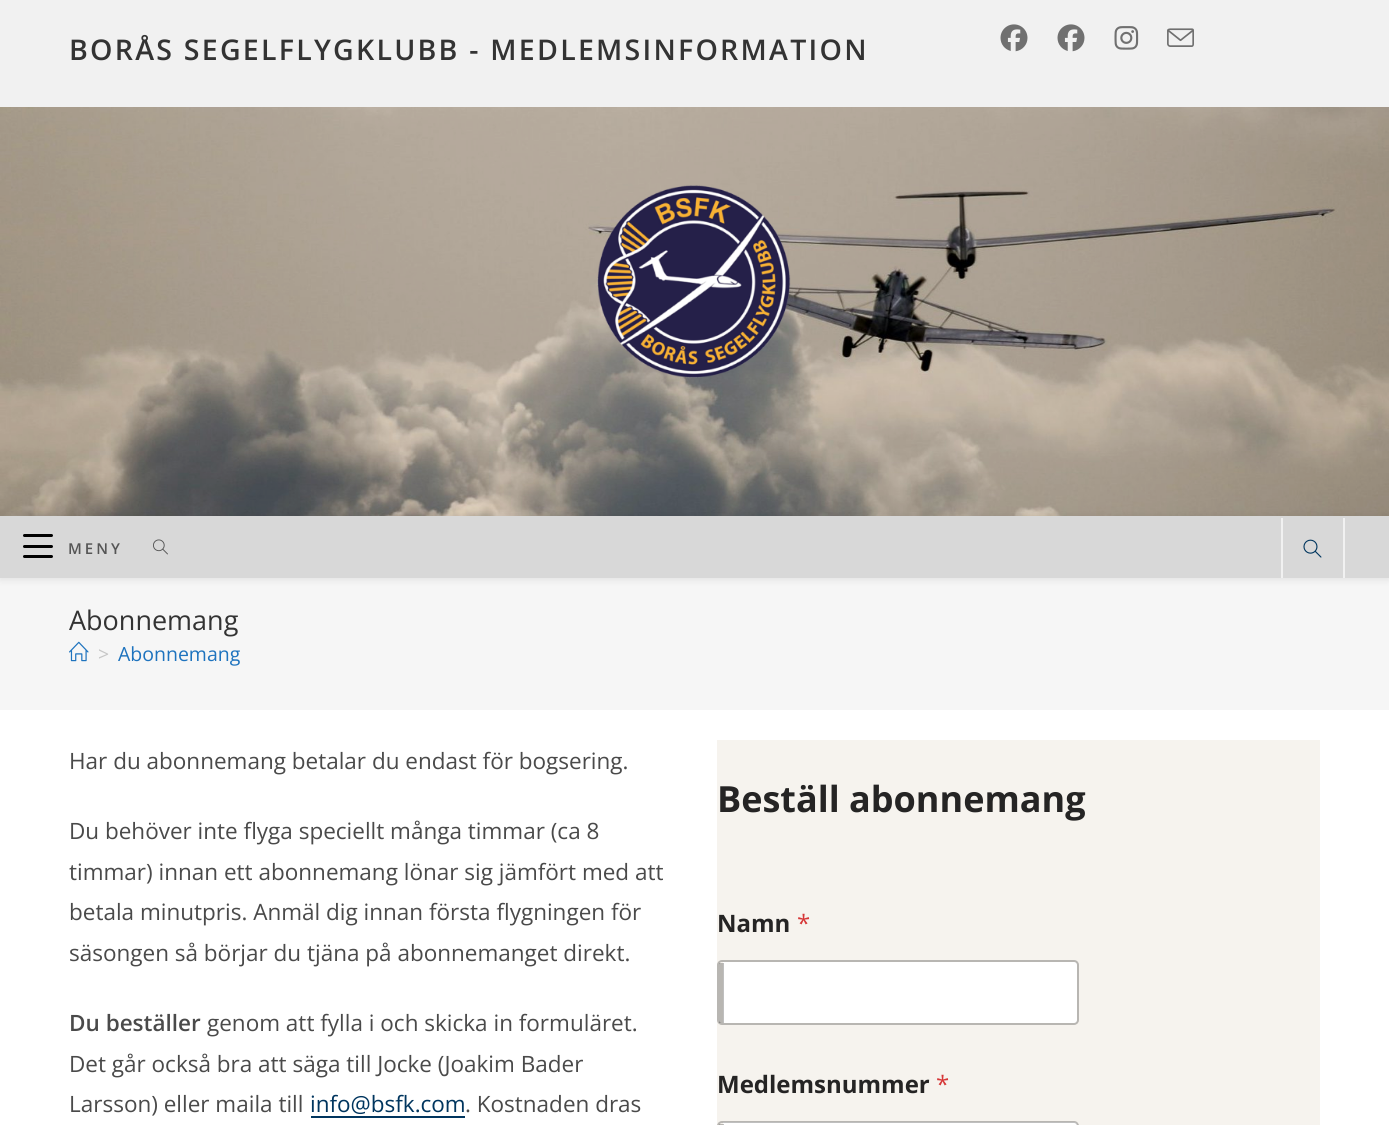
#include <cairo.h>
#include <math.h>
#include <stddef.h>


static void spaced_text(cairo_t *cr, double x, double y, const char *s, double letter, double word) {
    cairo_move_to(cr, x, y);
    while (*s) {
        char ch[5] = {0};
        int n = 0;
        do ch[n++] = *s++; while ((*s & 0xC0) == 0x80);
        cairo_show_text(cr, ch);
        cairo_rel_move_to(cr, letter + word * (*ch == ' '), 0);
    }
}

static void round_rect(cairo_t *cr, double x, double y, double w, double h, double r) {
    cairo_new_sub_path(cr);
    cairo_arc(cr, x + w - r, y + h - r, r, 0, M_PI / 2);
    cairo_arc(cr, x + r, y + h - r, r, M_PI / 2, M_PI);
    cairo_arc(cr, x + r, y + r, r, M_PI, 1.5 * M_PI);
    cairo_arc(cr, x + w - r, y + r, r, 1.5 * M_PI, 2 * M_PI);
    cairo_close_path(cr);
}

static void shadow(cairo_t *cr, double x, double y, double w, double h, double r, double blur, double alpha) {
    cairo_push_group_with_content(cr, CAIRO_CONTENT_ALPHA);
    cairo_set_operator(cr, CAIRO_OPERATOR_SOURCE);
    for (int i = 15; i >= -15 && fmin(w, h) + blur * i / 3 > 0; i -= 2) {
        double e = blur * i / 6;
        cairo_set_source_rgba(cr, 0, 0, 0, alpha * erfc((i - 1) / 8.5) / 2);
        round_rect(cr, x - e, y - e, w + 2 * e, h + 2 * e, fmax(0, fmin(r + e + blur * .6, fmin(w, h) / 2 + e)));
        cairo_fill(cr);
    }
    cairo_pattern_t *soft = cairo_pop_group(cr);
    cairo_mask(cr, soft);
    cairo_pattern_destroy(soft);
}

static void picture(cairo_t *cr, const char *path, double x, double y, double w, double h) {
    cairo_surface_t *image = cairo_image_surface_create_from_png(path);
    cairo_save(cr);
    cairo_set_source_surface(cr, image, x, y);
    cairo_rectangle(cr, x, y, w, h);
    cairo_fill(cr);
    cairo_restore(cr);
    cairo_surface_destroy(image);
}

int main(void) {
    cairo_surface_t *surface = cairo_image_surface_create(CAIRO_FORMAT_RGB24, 1389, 1125);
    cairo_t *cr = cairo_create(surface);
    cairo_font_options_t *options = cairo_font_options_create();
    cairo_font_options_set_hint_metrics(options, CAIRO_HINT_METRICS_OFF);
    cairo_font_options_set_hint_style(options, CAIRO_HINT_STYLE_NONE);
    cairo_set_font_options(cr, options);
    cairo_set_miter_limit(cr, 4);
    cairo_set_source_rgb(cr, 1, 1, 1);
    cairo_paint(cr);
    cairo_set_source_rgb(cr, 0.945, 0.945, 0.945);
    cairo_rectangle(cr, 0, 0, 1389, 107);
    cairo_fill(cr);
    cairo_select_font_face(cr, "Open Sans SemiBold", CAIRO_FONT_SLANT_NORMAL, CAIRO_FONT_WEIGHT_NORMAL);
    cairo_set_font_size(cr, 28.5);
    cairo_set_source_rgb(cr, 0.2, 0.2, 0.2);
    spaced_text(cr, 69, 60, "BORÅS SEGELFLYGKLUBB - MEDLEMSINFORMATION", 2.25, 0);
    picture(cr, "img1.png", 1000, 24, 28, 28);
    picture(cr, "img1.png", 1057, 24, 28, 28);
    picture(cr, "img2.png", 1114, 26, 25, 24);
    picture(cr, "img3.png", 1167, 28, 27, 19);
    picture(cr, "img4.png", 0, 107, 1389, 409);
    picture(cr, "img5.png", 597, 185, 194, 193);
    cairo_set_source_rgb(cr, 0.961, 0.961, 0.961);
    cairo_rectangle(cr, 0, 578, 1389, 132);
    cairo_fill(cr);
    cairo_set_source_rgb(cr, 0, 0, 0);
    shadow(cr, 0, 518, 1389, 61, 0, 4, 0.1);
    cairo_set_source_rgb(cr, 0.847, 0.847, 0.847);
    cairo_rectangle(cr, 0, 516, 1389, 62);
    cairo_fill(cr);
    cairo_set_source_rgb(cr, 0, 0, 0);
    round_rect(cr, 23, 545, 30, 3, 1.5);
    cairo_fill(cr);
    round_rect(cr, 23, 534, 30, 3, 1.5);
    cairo_fill(cr);
    round_rect(cr, 23, 555, 30, 3, 1.5);
    cairo_fill(cr);
    cairo_set_font_size(cr, 15);
    cairo_set_source_rgb(cr, 0.333, 0.333, 0.333);
    spaced_text(cr, 68, 554, "MENY", 3, 0);
    picture(cr, "img6.png", 153, 539, 15, 16);
    cairo_set_source_rgb(cr, 0.945, 0.945, 0.945);
    cairo_rectangle(cr, 1343, 518, 2, 60);
    cairo_fill(cr);
    cairo_rectangle(cr, 1281, 518, 2, 60);
    cairo_fill(cr);
    picture(cr, "img7.png", 1303, 539, 19, 19);
    cairo_select_font_face(cr, "Open Sans", CAIRO_FONT_SLANT_NORMAL, CAIRO_FONT_WEIGHT_NORMAL);
    cairo_set_font_size(cr, 27);
    cairo_set_source_rgb(cr, 0.2, 0.2, 0.2);
    cairo_move_to(cr, 69, 630);
    cairo_show_text(cr, "Abonnemang");
    picture(cr, "img8.png", 69, 641, 20, 21);
    cairo_set_font_size(cr, 19.5);
    cairo_set_source_rgb(cr, 0.776, 0.776, 0.776);
    cairo_move_to(cr, 98, 661);
    cairo_show_text(cr, ">");
    cairo_set_source_rgb(cr, 0.118, 0.451, 0.745);
    cairo_move_to(cr, 118, 661);
    cairo_show_text(cr, "Abonnemang");
    cairo_set_font_size(cr, 22.5);
    cairo_set_source_rgb(cr, 0.29, 0.29, 0.29);
    cairo_move_to(cr, 69, 769);
    cairo_show_text(cr, "Har du abonnemang betalar du endast för bogsering.");
    cairo_move_to(cr, 69, 839);
    cairo_show_text(cr, "Du behöver inte flyga speciellt många timmar (ca 8");
    cairo_move_to(cr, 69, 880);
    cairo_show_text(cr, "timmar) innan ett abonnemang lönar sig jämfört med att");
    cairo_move_to(cr, 69, 920);
    cairo_show_text(cr, "betala minutpris. Anmäl dig innan första flygningen för");
    cairo_move_to(cr, 69, 961);
    cairo_show_text(cr, "säsongen så börjar du tjäna på abonnemanget direkt.");
    cairo_select_font_face(cr, "Open Sans SemiBold", CAIRO_FONT_SLANT_NORMAL, CAIRO_FONT_WEIGHT_NORMAL);
    cairo_move_to(cr, 69, 1031);
    cairo_show_text(cr, "Du beställer");
    cairo_select_font_face(cr, "Open Sans", CAIRO_FONT_SLANT_NORMAL, CAIRO_FONT_WEIGHT_NORMAL);
    cairo_move_to(cr, 207, 1031);
    cairo_show_text(cr, "genom att fylla i och skicka in formuläret.");
    cairo_move_to(cr, 69, 1072);
    cairo_show_text(cr, "Det går också bra att säga till Jocke (Joakim Bader");
    cairo_move_to(cr, 69, 1112);
    cairo_show_text(cr, "Larsson) eller maila till");
    cairo_set_source_rgb(cr, 0, 0.208, 0.369);
    cairo_move_to(cr, 310, 1112);
    cairo_show_text(cr, "info@bsfk.com");
    cairo_rectangle(cr, 311, 1116, 154, 2);
    cairo_fill(cr);
    cairo_set_source_rgb(cr, 0.29, 0.29, 0.29);
    cairo_move_to(cr, 465, 1112);
    cairo_show_text(cr, ". Kostnaden dras");
    cairo_set_source_rgb(cr, 0.961, 0.953, 0.933);
    cairo_rectangle(cr, 717, 740, 603, 385);
    cairo_fill(cr);
    cairo_select_font_face(cr, "Open Sans", CAIRO_FONT_SLANT_NORMAL, CAIRO_FONT_WEIGHT_BOLD);
    cairo_set_font_size(cr, 36);
    cairo_set_source_rgb(cr, 0.145, 0.141, 0.141);
    cairo_move_to(cr, 717, 812);
    cairo_show_text(cr, "Beställ abonnemang");
    cairo_set_font_size(cr, 24);
    cairo_move_to(cr, 717, 932);
    cairo_show_text(cr, "Namn");
    cairo_select_font_face(cr, "Open Sans", CAIRO_FONT_SLANT_NORMAL, CAIRO_FONT_WEIGHT_NORMAL);
    cairo_set_source_rgb(cr, 0.839, 0.212, 0.216);
    cairo_move_to(cr, 797, 932);
    cairo_show_text(cr, "*");
    cairo_set_source_rgb(cr, 1, 1, 1);
    cairo_new_path(cr);
    cairo_move_to(cr, 723, 962);
    cairo_line_to(cr, 1074, 962);
    cairo_curve_to(cr, 1076, 962, 1077, 963, 1077, 964);
    cairo_line_to(cr, 1077, 1020);
    cairo_curve_to(cr, 1077, 1022, 1076, 1023, 1074, 1023);
    cairo_line_to(cr, 723, 1023);
    cairo_close_path(cr);
    cairo_fill(cr);
    round_rect(cr, 718, 961, 360, 63, 4);
    cairo_set_source_rgba(cr, 0, 0, 0, 0.25);
    cairo_stroke(cr);
    cairo_rectangle(cr, 719, 963, 5, 60);
    cairo_fill(cr);
    cairo_select_font_face(cr, "Open Sans", CAIRO_FONT_SLANT_NORMAL, CAIRO_FONT_WEIGHT_BOLD);
    cairo_set_source_rgb(cr, 0.145, 0.141, 0.141);
    cairo_move_to(cr, 717, 1093);
    cairo_show_text(cr, "Medlemsnummer");
    cairo_select_font_face(cr, "Open Sans", CAIRO_FONT_SLANT_NORMAL, CAIRO_FONT_WEIGHT_NORMAL);
    cairo_set_source_rgb(cr, 0.839, 0.212, 0.216);
    cairo_move_to(cr, 936, 1093);
    cairo_show_text(cr, "*");
    cairo_set_source_rgb(cr, 1, 1, 1);
    cairo_new_path(cr);
    cairo_move_to(cr, 723, 1122);
    cairo_line_to(cr, 1074, 1122);
    cairo_curve_to(cr, 1076, 1122, 1077, 1123, 1077, 1125);
    cairo_line_to(cr, 1077, 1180);
    cairo_curve_to(cr, 1077, 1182, 1076, 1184, 1074, 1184);
    cairo_line_to(cr, 723, 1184);
    cairo_close_path(cr);
    cairo_fill(cr);
    round_rect(cr, 718, 1122, 360, 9, 4);
    cairo_set_source_rgba(cr, 0, 0, 0, 0.25);
    cairo_stroke(cr);
    cairo_rectangle(cr, 719, 1124, 5, 1);
    cairo_fill(cr);
    cairo_surface_write_to_png(surface, "page.png");
    cairo_font_options_destroy(options);
    cairo_destroy(cr);
    cairo_surface_destroy(surface);
    return 0;
}
